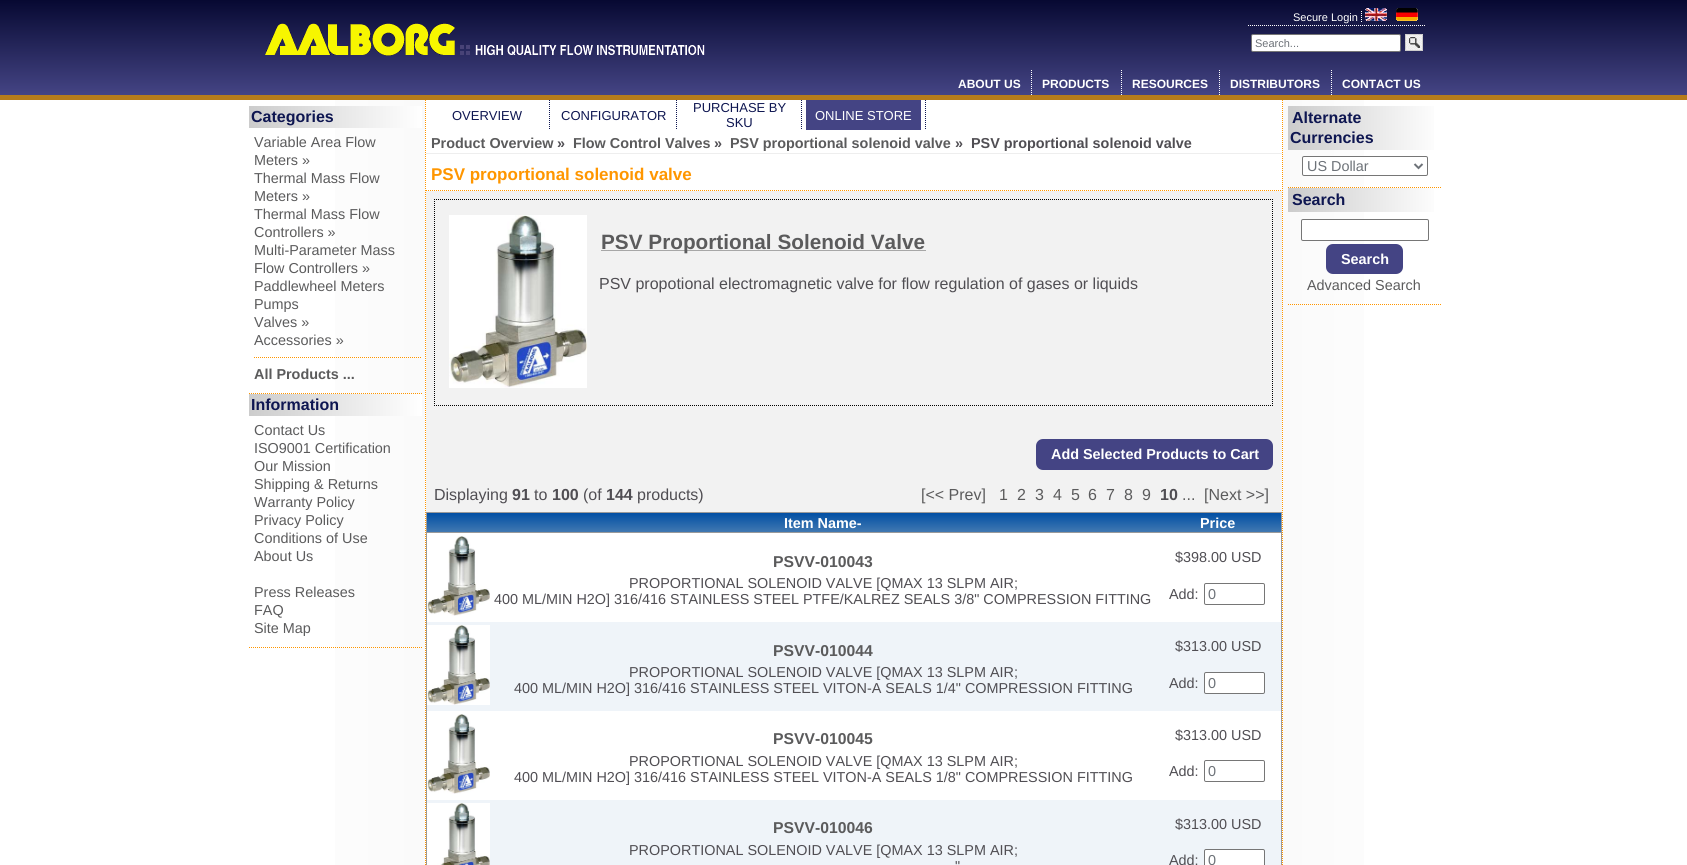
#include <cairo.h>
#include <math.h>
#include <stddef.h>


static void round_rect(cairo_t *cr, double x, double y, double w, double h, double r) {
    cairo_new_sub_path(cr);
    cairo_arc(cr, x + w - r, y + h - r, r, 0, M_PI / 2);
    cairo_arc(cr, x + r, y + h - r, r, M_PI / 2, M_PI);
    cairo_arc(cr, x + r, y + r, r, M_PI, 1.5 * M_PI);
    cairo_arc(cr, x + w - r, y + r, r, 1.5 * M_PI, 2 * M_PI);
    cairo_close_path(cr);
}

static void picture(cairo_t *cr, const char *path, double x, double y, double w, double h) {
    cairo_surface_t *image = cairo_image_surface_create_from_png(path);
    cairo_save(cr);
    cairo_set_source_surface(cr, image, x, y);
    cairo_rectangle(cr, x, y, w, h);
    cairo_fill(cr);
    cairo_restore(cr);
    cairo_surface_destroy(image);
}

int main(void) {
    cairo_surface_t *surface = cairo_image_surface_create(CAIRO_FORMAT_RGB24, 1687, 865);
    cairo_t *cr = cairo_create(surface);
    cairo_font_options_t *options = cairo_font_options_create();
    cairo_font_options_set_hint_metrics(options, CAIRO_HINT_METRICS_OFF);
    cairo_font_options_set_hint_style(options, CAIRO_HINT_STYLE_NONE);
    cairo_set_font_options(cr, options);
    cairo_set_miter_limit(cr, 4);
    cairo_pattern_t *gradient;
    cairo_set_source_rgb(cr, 1, 1, 1);
    cairo_paint(cr);
    gradient = cairo_pattern_create_linear(844, 0, 844, 95);
    cairo_pattern_add_color_stop_rgba(gradient, 0, 0.027, 0.035, 0.196, 1);
    cairo_pattern_add_color_stop_rgba(gradient, 1, 0.267, 0.267, 0.518, 1);
    cairo_set_source(cr, gradient);
    cairo_pattern_destroy(gradient);
    cairo_rectangle(cr, 0, 0, 1687, 95);
    cairo_fill(cr);
    cairo_set_source_rgb(cr, 0.714, 0.486, 0.106);
    cairo_rectangle(cr, 0, 95, 1687, 5);
    cairo_fill(cr);
    picture(cr, "img1.png", 265, 23, 440, 33);
    cairo_new_path(cr);
    cairo_move_to(cr, 1248, 25.5);
    cairo_line_to(cr, 1426, 25.5);
    cairo_set_source_rgb(cr, 1, 1, 1);
    cairo_set_line_width(cr, 1);
    cairo_set_dash(cr, (double[]){1, 1}, 2, 0);
    cairo_stroke(cr);
    cairo_select_font_face(cr, "Liberation Sans", CAIRO_FONT_SLANT_NORMAL, CAIRO_FONT_WEIGHT_NORMAL);
    cairo_set_font_size(cr, 11);
    cairo_move_to(cr, 1293, 21);
    cairo_show_text(cr, "Secure Login");
    cairo_new_path(cr);
    cairo_move_to(cr, 1361.5, 11);
    cairo_line_to(cr, 1361.5, 23);
    cairo_stroke(cr);
    picture(cr, "img2.png", 1365, 8, 22, 13);
    picture(cr, "img3.png", 1396, 8, 22, 13);
    round_rect(cr, 1251.5, 34.5, 149, 17, 1.5);
    cairo_fill_preserve(cr);
    cairo_set_source_rgb(cr, 0.463, 0.463, 0.463);
    cairo_set_dash(cr, NULL, 0, 0);
    cairo_stroke(cr);
    cairo_set_source_rgb(cr, 0.427, 0.447, 0.471);
    cairo_move_to(cr, 1255, 47);
    cairo_show_text(cr, "Search...");
    picture(cr, "img4.png", 1405, 34, 18, 17);
    cairo_select_font_face(cr, "Liberation Sans", CAIRO_FONT_SLANT_NORMAL, CAIRO_FONT_WEIGHT_BOLD);
    cairo_set_font_size(cr, 12);
    cairo_set_source_rgb(cr, 1, 1, 1);
    cairo_move_to(cr, 958, 88);
    cairo_show_text(cr, "ABOUT US");
    cairo_new_path(cr);
    cairo_move_to(cr, 1031.5, 70);
    cairo_line_to(cr, 1031.5, 95);
    cairo_set_dash(cr, (double[]){1, 1}, 2, 0);
    cairo_stroke(cr);
    cairo_move_to(cr, 1042, 88);
    cairo_show_text(cr, "PRODUCTS");
    cairo_new_path(cr);
    cairo_move_to(cr, 1121.5, 70);
    cairo_line_to(cr, 1121.5, 95);
    cairo_stroke(cr);
    cairo_move_to(cr, 1132, 88);
    cairo_show_text(cr, "RESOURCES");
    cairo_new_path(cr);
    cairo_move_to(cr, 1219.5, 70);
    cairo_line_to(cr, 1219.5, 95);
    cairo_stroke(cr);
    cairo_move_to(cr, 1230, 88);
    cairo_show_text(cr, "DISTRIBUTORS");
    cairo_new_path(cr);
    cairo_move_to(cr, 1331.5, 70);
    cairo_line_to(cr, 1331.5, 95);
    cairo_stroke(cr);
    cairo_move_to(cr, 1342, 88);
    cairo_show_text(cr, "CONTACT US");
    gradient = cairo_pattern_create_linear(425, 810, 244, 810);
    cairo_pattern_add_color_stop_rgba(gradient, 0, 0.98, 0.98, 0.98, 1);
    cairo_pattern_add_color_stop_rgba(gradient, 1, 1, 1, 1, 1);
    cairo_set_source(cr, gradient);
    cairo_pattern_destroy(gradient);
    cairo_rectangle(cr, 335, 100, 90, 765);
    cairo_fill(cr);
    cairo_new_path(cr);
    cairo_move_to(cr, 425.5, 100);
    cairo_line_to(cr, 425.5, 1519);
    cairo_set_source_rgb(cr, 1, 0.588, 0);
    cairo_stroke(cr);
    cairo_new_path(cr);
    cairo_move_to(cr, 249, 393.5);
    cairo_line_to(cr, 422, 393.5);
    cairo_stroke(cr);
    gradient = cairo_pattern_create_linear(249, 117, 422, 117);
    cairo_pattern_add_color_stop_rgba(gradient, 0, 0.8, 0.8, 0.8, 1);
    cairo_pattern_add_color_stop_rgba(gradient, 1, 1, 1, 1, 1);
    cairo_set_source(cr, gradient);
    cairo_pattern_destroy(gradient);
    cairo_rectangle(cr, 249, 106, 173, 22);
    cairo_fill(cr);
    cairo_set_font_size(cr, 16);
    cairo_set_source_rgb(cr, 0.055, 0.086, 0.318);
    cairo_move_to(cr, 251, 122);
    cairo_show_text(cr, "Categories");
    cairo_select_font_face(cr, "Liberation Sans", CAIRO_FONT_SLANT_NORMAL, CAIRO_FONT_WEIGHT_NORMAL);
    cairo_set_font_size(cr, 14.4);
    cairo_set_source_rgb(cr, 0.357, 0.357, 0.361);
    cairo_move_to(cr, 254, 147);
    cairo_show_text(cr, "Variable Area Flow");
    cairo_move_to(cr, 254, 165);
    cairo_show_text(cr, "Meters »");
    cairo_move_to(cr, 254, 183);
    cairo_show_text(cr, "Thermal Mass Flow");
    cairo_move_to(cr, 254, 201);
    cairo_show_text(cr, "Meters »");
    cairo_move_to(cr, 254, 219);
    cairo_show_text(cr, "Thermal Mass Flow");
    cairo_move_to(cr, 254, 237);
    cairo_show_text(cr, "Controllers »");
    cairo_move_to(cr, 254, 255);
    cairo_show_text(cr, "Multi-Parameter Mass");
    cairo_move_to(cr, 254, 273);
    cairo_show_text(cr, "Flow Controllers »");
    cairo_move_to(cr, 254, 291);
    cairo_show_text(cr, "Paddlewheel Meters");
    cairo_move_to(cr, 254, 309);
    cairo_show_text(cr, "Pumps");
    cairo_move_to(cr, 254, 327);
    cairo_show_text(cr, "Valves »");
    cairo_move_to(cr, 254, 345);
    cairo_show_text(cr, "Accessories »");
    cairo_new_path(cr);
    cairo_move_to(cr, 254, 357.5);
    cairo_line_to(cr, 422, 357.5);
    cairo_set_source_rgb(cr, 1, 0.588, 0);
    cairo_stroke(cr);
    cairo_select_font_face(cr, "Liberation Sans", CAIRO_FONT_SLANT_NORMAL, CAIRO_FONT_WEIGHT_BOLD);
    cairo_set_source_rgb(cr, 0.357, 0.357, 0.361);
    cairo_move_to(cr, 254, 379);
    cairo_show_text(cr, "All Products ...");
    cairo_new_path(cr);
    cairo_move_to(cr, 249, 647.5);
    cairo_line_to(cr, 422, 647.5);
    cairo_set_source_rgb(cr, 1, 0.588, 0);
    cairo_stroke(cr);
    gradient = cairo_pattern_create_linear(249, 405, 422, 405);
    cairo_pattern_add_color_stop_rgba(gradient, 0, 0.8, 0.8, 0.8, 1);
    cairo_pattern_add_color_stop_rgba(gradient, 1, 1, 1, 1, 1);
    cairo_set_source(cr, gradient);
    cairo_pattern_destroy(gradient);
    cairo_rectangle(cr, 249, 394, 173, 22);
    cairo_fill(cr);
    cairo_set_font_size(cr, 16);
    cairo_set_source_rgb(cr, 0.055, 0.086, 0.318);
    cairo_move_to(cr, 251, 410);
    cairo_show_text(cr, "Information");
    cairo_select_font_face(cr, "Liberation Sans", CAIRO_FONT_SLANT_NORMAL, CAIRO_FONT_WEIGHT_NORMAL);
    cairo_set_font_size(cr, 14.4);
    cairo_set_source_rgb(cr, 0.357, 0.357, 0.361);
    cairo_move_to(cr, 254, 435);
    cairo_show_text(cr, "Contact Us");
    cairo_move_to(cr, 254, 453);
    cairo_show_text(cr, "ISO9001 Certification");
    cairo_move_to(cr, 254, 471);
    cairo_show_text(cr, "Our Mission");
    cairo_move_to(cr, 254, 489);
    cairo_show_text(cr, "Shipping & Returns");
    cairo_move_to(cr, 254, 507);
    cairo_show_text(cr, "Warranty Policy");
    cairo_move_to(cr, 254, 525);
    cairo_show_text(cr, "Privacy Policy");
    cairo_move_to(cr, 254, 543);
    cairo_show_text(cr, "Conditions of Use");
    cairo_move_to(cr, 254, 561);
    cairo_show_text(cr, "About Us");
    cairo_move_to(cr, 254, 597);
    cairo_show_text(cr, "Press Releases");
    cairo_move_to(cr, 254, 615);
    cairo_show_text(cr, "FAQ");
    cairo_move_to(cr, 254, 633);
    cairo_show_text(cr, "Site Map");
    cairo_set_font_size(cr, 13);
    cairo_set_source_rgb(cr, 0.055, 0.086, 0.318);
    cairo_move_to(cr, 452, 120);
    cairo_show_text(cr, "OVERVIEW");
    cairo_new_path(cr);
    cairo_move_to(cr, 549.5, 100);
    cairo_line_to(cr, 549.5, 130);
    cairo_stroke(cr);
    cairo_move_to(cr, 561, 120);
    cairo_show_text(cr, "CONFIGURATOR");
    cairo_new_path(cr);
    cairo_move_to(cr, 676.5, 100);
    cairo_line_to(cr, 676.5, 130);
    cairo_stroke(cr);
    cairo_move_to(cr, 693, 112);
    cairo_show_text(cr, "PURCHASE BY");
    cairo_move_to(cr, 726, 127);
    cairo_show_text(cr, "SKU");
    cairo_new_path(cr);
    cairo_move_to(cr, 801.5, 100);
    cairo_line_to(cr, 801.5, 130);
    cairo_stroke(cr);
    cairo_set_source_rgb(cr, 0.267, 0.267, 0.518);
    cairo_rectangle(cr, 806, 100, 115, 30);
    cairo_fill(cr);
    cairo_set_source_rgb(cr, 1, 1, 1);
    cairo_move_to(cr, 815, 120);
    cairo_show_text(cr, "ONLINE STORE");
    cairo_new_path(cr);
    cairo_move_to(cr, 925.5, 100);
    cairo_line_to(cr, 925.5, 130);
    cairo_set_source_rgb(cr, 0.055, 0.086, 0.318);
    cairo_stroke(cr);
    cairo_set_source_rgb(cr, 0.933, 0.933, 0.933);
    cairo_rectangle(cr, 426, 153, 856, 1);
    cairo_fill(cr);
    cairo_select_font_face(cr, "Liberation Sans", CAIRO_FONT_SLANT_NORMAL, CAIRO_FONT_WEIGHT_BOLD);
    cairo_set_font_size(cr, 14.4);
    cairo_set_source_rgb(cr, 0.357, 0.357, 0.361);
    cairo_move_to(cr, 431, 148);
    cairo_show_text(cr, "Product Overview");
    cairo_set_source_rgb(cr, 0.314, 0.306, 0.325);
    cairo_move_to(cr, 557, 148);
    cairo_show_text(cr, "»");
    cairo_set_source_rgb(cr, 0.357, 0.357, 0.361);
    cairo_move_to(cr, 573, 148);
    cairo_show_text(cr, "Flow Control Valves");
    cairo_set_source_rgb(cr, 0.314, 0.306, 0.325);
    cairo_move_to(cr, 714, 148);
    cairo_show_text(cr, "»");
    cairo_set_source_rgb(cr, 0.357, 0.357, 0.361);
    cairo_move_to(cr, 730, 148);
    cairo_show_text(cr, "PSV proportional solenoid valve");
    cairo_set_source_rgb(cr, 0.314, 0.306, 0.325);
    cairo_move_to(cr, 955, 148);
    cairo_show_text(cr, "»  PSV proportional solenoid valve");
    cairo_set_source_rgb(cr, 0.949, 0.949, 0.949);
    cairo_rectangle(cr, 426, 191, 856, 321);
    cairo_fill(cr);
    cairo_new_path(cr);
    cairo_move_to(cr, 426, 190.5);
    cairo_line_to(cr, 1282, 190.5);
    cairo_set_source_rgb(cr, 1, 0.588, 0);
    cairo_stroke(cr);
    cairo_set_font_size(cr, 17);
    cairo_move_to(cr, 431, 180);
    cairo_show_text(cr, "PSV proportional solenoid valve");
    cairo_new_path(cr);
    cairo_move_to(cr, 434, 199.5);
    cairo_line_to(cr, 1273, 199.5);
    cairo_set_source_rgb(cr, 0, 0, 0);
    cairo_stroke(cr);
    cairo_new_path(cr);
    cairo_move_to(cr, 1272.5, 199);
    cairo_line_to(cr, 1272.5, 406);
    cairo_stroke(cr);
    cairo_new_path(cr);
    cairo_move_to(cr, 434, 405.5);
    cairo_line_to(cr, 1273, 405.5);
    cairo_stroke(cr);
    cairo_new_path(cr);
    cairo_move_to(cr, 434.5, 199);
    cairo_line_to(cr, 434.5, 406);
    cairo_stroke(cr);
    picture(cr, "img5.png", 449, 215, 138, 173);
    cairo_new_path(cr);
    cairo_move_to(cr, 601.5, 250.5);
    cairo_line_to(cr, 926, 250.5);
    cairo_set_source_rgb(cr, 0.357, 0.357, 0.361);
    cairo_stroke(cr);
    cairo_set_font_size(cr, 20.75);
    cairo_move_to(cr, 601, 249);
    cairo_show_text(cr, "PSV Proportional Solenoid Valve");
    cairo_select_font_face(cr, "Liberation Sans", CAIRO_FONT_SLANT_NORMAL, CAIRO_FONT_WEIGHT_NORMAL);
    cairo_set_font_size(cr, 16);
    cairo_set_source_rgb(cr, 0.314, 0.306, 0.325);
    cairo_move_to(cr, 599, 289);
    cairo_show_text(cr, "PSV propotional electromagnetic valve for flow regulation of gases or liquids");
    cairo_set_source_rgb(cr, 0.267, 0.267, 0.518);
    round_rect(cr, 1036, 439, 237, 31, 7);
    cairo_fill(cr);
    cairo_select_font_face(cr, "Liberation Sans", CAIRO_FONT_SLANT_NORMAL, CAIRO_FONT_WEIGHT_BOLD);
    cairo_set_font_size(cr, 14.4);
    cairo_set_source_rgb(cr, 1, 1, 1);
    cairo_move_to(cr, 1051, 459);
    cairo_show_text(cr, "Add Selected Products to Cart");
    cairo_select_font_face(cr, "Liberation Sans", CAIRO_FONT_SLANT_NORMAL, CAIRO_FONT_WEIGHT_NORMAL);
    cairo_set_font_size(cr, 16);
    cairo_set_source_rgb(cr, 0.314, 0.306, 0.325);
    cairo_move_to(cr, 434, 500);
    cairo_show_text(cr, "Displaying");
    cairo_select_font_face(cr, "Liberation Sans", CAIRO_FONT_SLANT_NORMAL, CAIRO_FONT_WEIGHT_BOLD);
    cairo_move_to(cr, 512, 500);
    cairo_show_text(cr, "91");
    cairo_select_font_face(cr, "Liberation Sans", CAIRO_FONT_SLANT_NORMAL, CAIRO_FONT_WEIGHT_NORMAL);
    cairo_move_to(cr, 534, 500);
    cairo_show_text(cr, "to");
    cairo_select_font_face(cr, "Liberation Sans", CAIRO_FONT_SLANT_NORMAL, CAIRO_FONT_WEIGHT_BOLD);
    cairo_move_to(cr, 552, 500);
    cairo_show_text(cr, "100");
    cairo_select_font_face(cr, "Liberation Sans", CAIRO_FONT_SLANT_NORMAL, CAIRO_FONT_WEIGHT_NORMAL);
    cairo_move_to(cr, 583, 500);
    cairo_show_text(cr, "(of");
    cairo_select_font_face(cr, "Liberation Sans", CAIRO_FONT_SLANT_NORMAL, CAIRO_FONT_WEIGHT_BOLD);
    cairo_move_to(cr, 606, 500);
    cairo_show_text(cr, "144");
    cairo_select_font_face(cr, "Liberation Sans", CAIRO_FONT_SLANT_NORMAL, CAIRO_FONT_WEIGHT_NORMAL);
    cairo_move_to(cr, 637, 500);
    cairo_show_text(cr, "products)");
    cairo_set_source_rgb(cr, 0.357, 0.357, 0.361);
    cairo_move_to(cr, 921, 500);
    cairo_show_text(cr, "[<< Prev]");
    cairo_move_to(cr, 999, 500);
    cairo_show_text(cr, "1");
    cairo_move_to(cr, 1017, 500);
    cairo_show_text(cr, "2");
    cairo_move_to(cr, 1035, 500);
    cairo_show_text(cr, "3");
    cairo_move_to(cr, 1053, 500);
    cairo_show_text(cr, "4");
    cairo_move_to(cr, 1071, 500);
    cairo_show_text(cr, "5");
    cairo_move_to(cr, 1088, 500);
    cairo_show_text(cr, "6");
    cairo_move_to(cr, 1106, 500);
    cairo_show_text(cr, "7");
    cairo_move_to(cr, 1124, 500);
    cairo_show_text(cr, "8");
    cairo_move_to(cr, 1142, 500);
    cairo_show_text(cr, "9");
    cairo_select_font_face(cr, "Liberation Sans", CAIRO_FONT_SLANT_NORMAL, CAIRO_FONT_WEIGHT_BOLD);
    cairo_set_source_rgb(cr, 0.314, 0.306, 0.325);
    cairo_move_to(cr, 1160, 500);
    cairo_show_text(cr, "10");
    cairo_select_font_face(cr, "Liberation Sans", CAIRO_FONT_SLANT_NORMAL, CAIRO_FONT_WEIGHT_NORMAL);
    cairo_set_source_rgb(cr, 0.357, 0.357, 0.361);
    cairo_move_to(cr, 1182, 500);
    cairo_show_text(cr, "...");
    cairo_move_to(cr, 1204, 500);
    cairo_show_text(cr, "[Next >>]");
    cairo_rectangle(cr, 426.5, 512.5, 855, 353);
    cairo_set_source_rgb(cr, 0.604, 0.604, 0.604);
    cairo_set_dash(cr, NULL, 0, 0);
    cairo_stroke(cr);
    gradient = cairo_pattern_create_linear(854, 513, 854, 532);
    cairo_pattern_add_color_stop_rgba(gradient, 0, 0.004, 0.31, 0.643, 1);
    cairo_pattern_add_color_stop_rgba(gradient, 1, 0.255, 0.471, 0.694, 1);
    cairo_set_source(cr, gradient);
    cairo_pattern_destroy(gradient);
    cairo_rectangle(cr, 427, 513, 854, 19);
    cairo_fill(cr);
    cairo_set_source_rgb(cr, 0.604, 0.604, 0.604);
    cairo_rectangle(cr, 427, 532, 854, 1);
    cairo_fill(cr);
    cairo_select_font_face(cr, "Liberation Sans", CAIRO_FONT_SLANT_NORMAL, CAIRO_FONT_WEIGHT_BOLD);
    cairo_set_font_size(cr, 14.4);
    cairo_set_source_rgb(cr, 1, 1, 1);
    cairo_move_to(cr, 784, 528);
    cairo_show_text(cr, "Item Name-");
    cairo_move_to(cr, 1200, 528);
    cairo_show_text(cr, "Price");
    picture(cr, "img6.png", 427, 536, 63, 80);
    cairo_set_font_size(cr, 15.75);
    cairo_set_source_rgb(cr, 0.357, 0.357, 0.361);
    cairo_move_to(cr, 773, 567);
    cairo_show_text(cr, "PSVV-010043");
    cairo_select_font_face(cr, "Liberation Sans", CAIRO_FONT_SLANT_NORMAL, CAIRO_FONT_WEIGHT_NORMAL);
    cairo_set_font_size(cr, 14.4);
    cairo_set_source_rgb(cr, 0.314, 0.306, 0.325);
    cairo_move_to(cr, 629, 588);
    cairo_show_text(cr, "PROPORTIONAL SOLENOID VALVE [QMAX 13 SLPM AIR;");
    cairo_move_to(cr, 494, 604);
    cairo_show_text(cr, "400 ML/MIN H2O] 316/416 STAINLESS STEEL PTFE/KALREZ SEALS 3/8\" COMPRESSION FITTING");
    cairo_move_to(cr, 1175, 562);
    cairo_show_text(cr, "$398.00 USD");
    cairo_move_to(cr, 1169, 599);
    cairo_show_text(cr, "Add:");
    round_rect(cr, 1204.5, 583.5, 60, 21, 1.5);
    cairo_set_source_rgb(cr, 0.463, 0.463, 0.463);
    cairo_stroke(cr);
    cairo_set_source_rgb(cr, 0.427, 0.447, 0.471);
    cairo_move_to(cr, 1208, 599);
    cairo_show_text(cr, "0");
    cairo_set_source_rgb(cr, 0.937, 0.957, 0.973);
    cairo_rectangle(cr, 427, 622, 854, 89);
    cairo_fill(cr);
    picture(cr, "img6.png", 427, 625, 63, 80);
    cairo_select_font_face(cr, "Liberation Sans", CAIRO_FONT_SLANT_NORMAL, CAIRO_FONT_WEIGHT_BOLD);
    cairo_set_font_size(cr, 15.75);
    cairo_set_source_rgb(cr, 0.357, 0.357, 0.361);
    cairo_move_to(cr, 773, 656);
    cairo_show_text(cr, "PSVV-010044");
    cairo_select_font_face(cr, "Liberation Sans", CAIRO_FONT_SLANT_NORMAL, CAIRO_FONT_WEIGHT_NORMAL);
    cairo_set_font_size(cr, 14.4);
    cairo_set_source_rgb(cr, 0.314, 0.306, 0.325);
    cairo_move_to(cr, 629, 677);
    cairo_show_text(cr, "PROPORTIONAL SOLENOID VALVE [QMAX 13 SLPM AIR;");
    cairo_move_to(cr, 514, 693);
    cairo_show_text(cr, "400 ML/MIN H2O] 316/416 STAINLESS STEEL VITON-A SEALS 1/4\" COMPRESSION FITTING");
    cairo_move_to(cr, 1175, 651);
    cairo_show_text(cr, "$313.00 USD");
    cairo_move_to(cr, 1169, 688);
    cairo_show_text(cr, "Add:");
    cairo_set_source_rgb(cr, 1, 1, 1);
    round_rect(cr, 1204.5, 672.5, 60, 21, 1.5);
    cairo_fill_preserve(cr);
    cairo_set_source_rgb(cr, 0.463, 0.463, 0.463);
    cairo_stroke(cr);
    cairo_set_source_rgb(cr, 0.427, 0.447, 0.471);
    cairo_move_to(cr, 1208, 688);
    cairo_show_text(cr, "0");
    picture(cr, "img6.png", 427, 714, 63, 80);
    cairo_select_font_face(cr, "Liberation Sans", CAIRO_FONT_SLANT_NORMAL, CAIRO_FONT_WEIGHT_BOLD);
    cairo_set_font_size(cr, 15.75);
    cairo_set_source_rgb(cr, 0.357, 0.357, 0.361);
    cairo_move_to(cr, 773, 744);
    cairo_show_text(cr, "PSVV-010045");
    cairo_select_font_face(cr, "Liberation Sans", CAIRO_FONT_SLANT_NORMAL, CAIRO_FONT_WEIGHT_NORMAL);
    cairo_set_font_size(cr, 14.4);
    cairo_set_source_rgb(cr, 0.314, 0.306, 0.325);
    cairo_move_to(cr, 629, 766);
    cairo_show_text(cr, "PROPORTIONAL SOLENOID VALVE [QMAX 13 SLPM AIR;");
    cairo_move_to(cr, 514, 782);
    cairo_show_text(cr, "400 ML/MIN H2O] 316/416 STAINLESS STEEL VITON-A SEALS 1/8\" COMPRESSION FITTING");
    cairo_move_to(cr, 1175, 740);
    cairo_show_text(cr, "$313.00 USD");
    cairo_move_to(cr, 1169, 776);
    cairo_show_text(cr, "Add:");
    round_rect(cr, 1204.5, 760.5, 60, 21, 1.5);
    cairo_set_source_rgb(cr, 0.463, 0.463, 0.463);
    cairo_stroke(cr);
    cairo_set_source_rgb(cr, 0.427, 0.447, 0.471);
    cairo_move_to(cr, 1208, 776);
    cairo_show_text(cr, "0");
    cairo_set_source_rgb(cr, 0.937, 0.957, 0.973);
    cairo_rectangle(cr, 427, 800, 854, 65);
    cairo_fill(cr);
    picture(cr, "img7.png", 427, 803, 63, 62);
    cairo_select_font_face(cr, "Liberation Sans", CAIRO_FONT_SLANT_NORMAL, CAIRO_FONT_WEIGHT_BOLD);
    cairo_set_font_size(cr, 15.75);
    cairo_set_source_rgb(cr, 0.357, 0.357, 0.361);
    cairo_move_to(cr, 773, 833);
    cairo_show_text(cr, "PSVV-010046");
    cairo_select_font_face(cr, "Liberation Sans", CAIRO_FONT_SLANT_NORMAL, CAIRO_FONT_WEIGHT_NORMAL);
    cairo_set_font_size(cr, 14.4);
    cairo_set_source_rgb(cr, 0.314, 0.306, 0.325);
    cairo_move_to(cr, 629, 855);
    cairo_show_text(cr, "PROPORTIONAL SOLENOID VALVE [QMAX 13 SLPM AIR;");
    cairo_move_to(cr, 955, 871);
    cairo_show_text(cr, "\"");
    cairo_move_to(cr, 1175, 829);
    cairo_show_text(cr, "$313.00 USD");
    cairo_move_to(cr, 1169, 865);
    cairo_show_text(cr, "Add:");
    cairo_set_source_rgb(cr, 1, 1, 1);
    round_rect(cr, 1204.5, 849.5, 60, 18, 1.5);
    cairo_fill_preserve(cr);
    cairo_set_source_rgb(cr, 0.463, 0.463, 0.463);
    cairo_stroke(cr);
    cairo_set_source_rgb(cr, 0.427, 0.447, 0.471);
    cairo_move_to(cr, 1208, 865);
    cairo_show_text(cr, "0");
    gradient = cairo_pattern_create_linear(1283, 810, 1444, 810);
    cairo_pattern_add_color_stop_rgba(gradient, 0, 0.98, 0.98, 0.98, 1);
    cairo_pattern_add_color_stop_rgba(gradient, 1, 1, 1, 1, 1);
    cairo_set_source(cr, gradient);
    cairo_pattern_destroy(gradient);
    cairo_rectangle(cr, 1283, 100, 81, 765);
    cairo_fill(cr);
    cairo_new_path(cr);
    cairo_move_to(cr, 1282.5, 100);
    cairo_line_to(cr, 1282.5, 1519);
    cairo_set_source_rgb(cr, 1, 0.588, 0);
    cairo_set_dash(cr, (double[]){1, 1}, 2, 0);
    cairo_stroke(cr);
    cairo_new_path(cr);
    cairo_move_to(cr, 1288, 187.5);
    cairo_line_to(cr, 1441, 187.5);
    cairo_stroke(cr);
    gradient = cairo_pattern_create_linear(1288, 128, 1441, 128);
    cairo_pattern_add_color_stop_rgba(gradient, 0, 0.8, 0.8, 0.8, 1);
    cairo_pattern_add_color_stop_rgba(gradient, 1, 1, 1, 1, 1);
    cairo_set_source(cr, gradient);
    cairo_pattern_destroy(gradient);
    cairo_rectangle(cr, 1288, 106, 146, 44);
    cairo_fill(cr);
    cairo_select_font_face(cr, "Liberation Sans", CAIRO_FONT_SLANT_NORMAL, CAIRO_FONT_WEIGHT_BOLD);
    cairo_set_font_size(cr, 16);
    cairo_set_source_rgb(cr, 0.055, 0.086, 0.318);
    cairo_move_to(cr, 1292, 123);
    cairo_show_text(cr, "Alternate");
    cairo_move_to(cr, 1290, 143);
    cairo_show_text(cr, "Currencies");
    cairo_set_source_rgb(cr, 1, 1, 1);
    round_rect(cr, 1302.5, 156.5, 125, 19, 1.5);
    cairo_fill_preserve(cr);
    cairo_set_source_rgb(cr, 0.463, 0.463, 0.463);
    cairo_set_dash(cr, NULL, 0, 0);
    cairo_stroke(cr);
    cairo_new_path(cr);
    cairo_move_to(cr, 1414.5, 164);
    cairo_line_to(cr, 1418.5, 168);
    cairo_line_to(cr, 1422.5, 164);
    cairo_set_source_rgb(cr, 0.427, 0.447, 0.471);
    cairo_set_line_width(cr, 2);
    cairo_stroke(cr);
    cairo_select_font_face(cr, "Liberation Sans", CAIRO_FONT_SLANT_NORMAL, CAIRO_FONT_WEIGHT_NORMAL);
    cairo_set_font_size(cr, 14.4);
    cairo_move_to(cr, 1307, 171);
    cairo_show_text(cr, "US Dollar");
    cairo_new_path(cr);
    cairo_move_to(cr, 1288, 304.5);
    cairo_line_to(cr, 1441, 304.5);
    cairo_set_source_rgb(cr, 1, 0.588, 0);
    cairo_set_line_width(cr, 1);
    cairo_set_dash(cr, (double[]){1, 1}, 2, 0);
    cairo_stroke(cr);
    gradient = cairo_pattern_create_linear(1288, 200, 1441, 200);
    cairo_pattern_add_color_stop_rgba(gradient, 0, 0.8, 0.8, 0.8, 1);
    cairo_pattern_add_color_stop_rgba(gradient, 1, 1, 1, 1, 1);
    cairo_set_source(cr, gradient);
    cairo_pattern_destroy(gradient);
    cairo_rectangle(cr, 1288, 188, 146, 24);
    cairo_fill(cr);
    cairo_select_font_face(cr, "Liberation Sans", CAIRO_FONT_SLANT_NORMAL, CAIRO_FONT_WEIGHT_BOLD);
    cairo_set_font_size(cr, 16);
    cairo_set_source_rgb(cr, 0.055, 0.086, 0.318);
    cairo_move_to(cr, 1292, 205);
    cairo_show_text(cr, "Search");
    cairo_set_source_rgb(cr, 1, 1, 1);
    round_rect(cr, 1301.5, 219.5, 127, 21, 1.5);
    cairo_fill_preserve(cr);
    cairo_set_source_rgb(cr, 0.463, 0.463, 0.463);
    cairo_set_dash(cr, NULL, 0, 0);
    cairo_stroke(cr);
    cairo_set_source_rgb(cr, 0.267, 0.267, 0.518);
    round_rect(cr, 1326, 244, 77, 30, 7);
    cairo_fill(cr);
    cairo_set_font_size(cr, 14.4);
    cairo_set_source_rgb(cr, 1, 1, 1);
    cairo_move_to(cr, 1341, 264);
    cairo_show_text(cr, "Search");
    cairo_select_font_face(cr, "Liberation Sans", CAIRO_FONT_SLANT_NORMAL, CAIRO_FONT_WEIGHT_NORMAL);
    cairo_set_source_rgb(cr, 0.357, 0.357, 0.361);
    cairo_move_to(cr, 1307, 290);
    cairo_show_text(cr, "Advanced Search");
    cairo_surface_write_to_png(surface, "page.png");
    cairo_font_options_destroy(options);
    cairo_destroy(cr);
    cairo_surface_destroy(surface);
    return 0;
}
